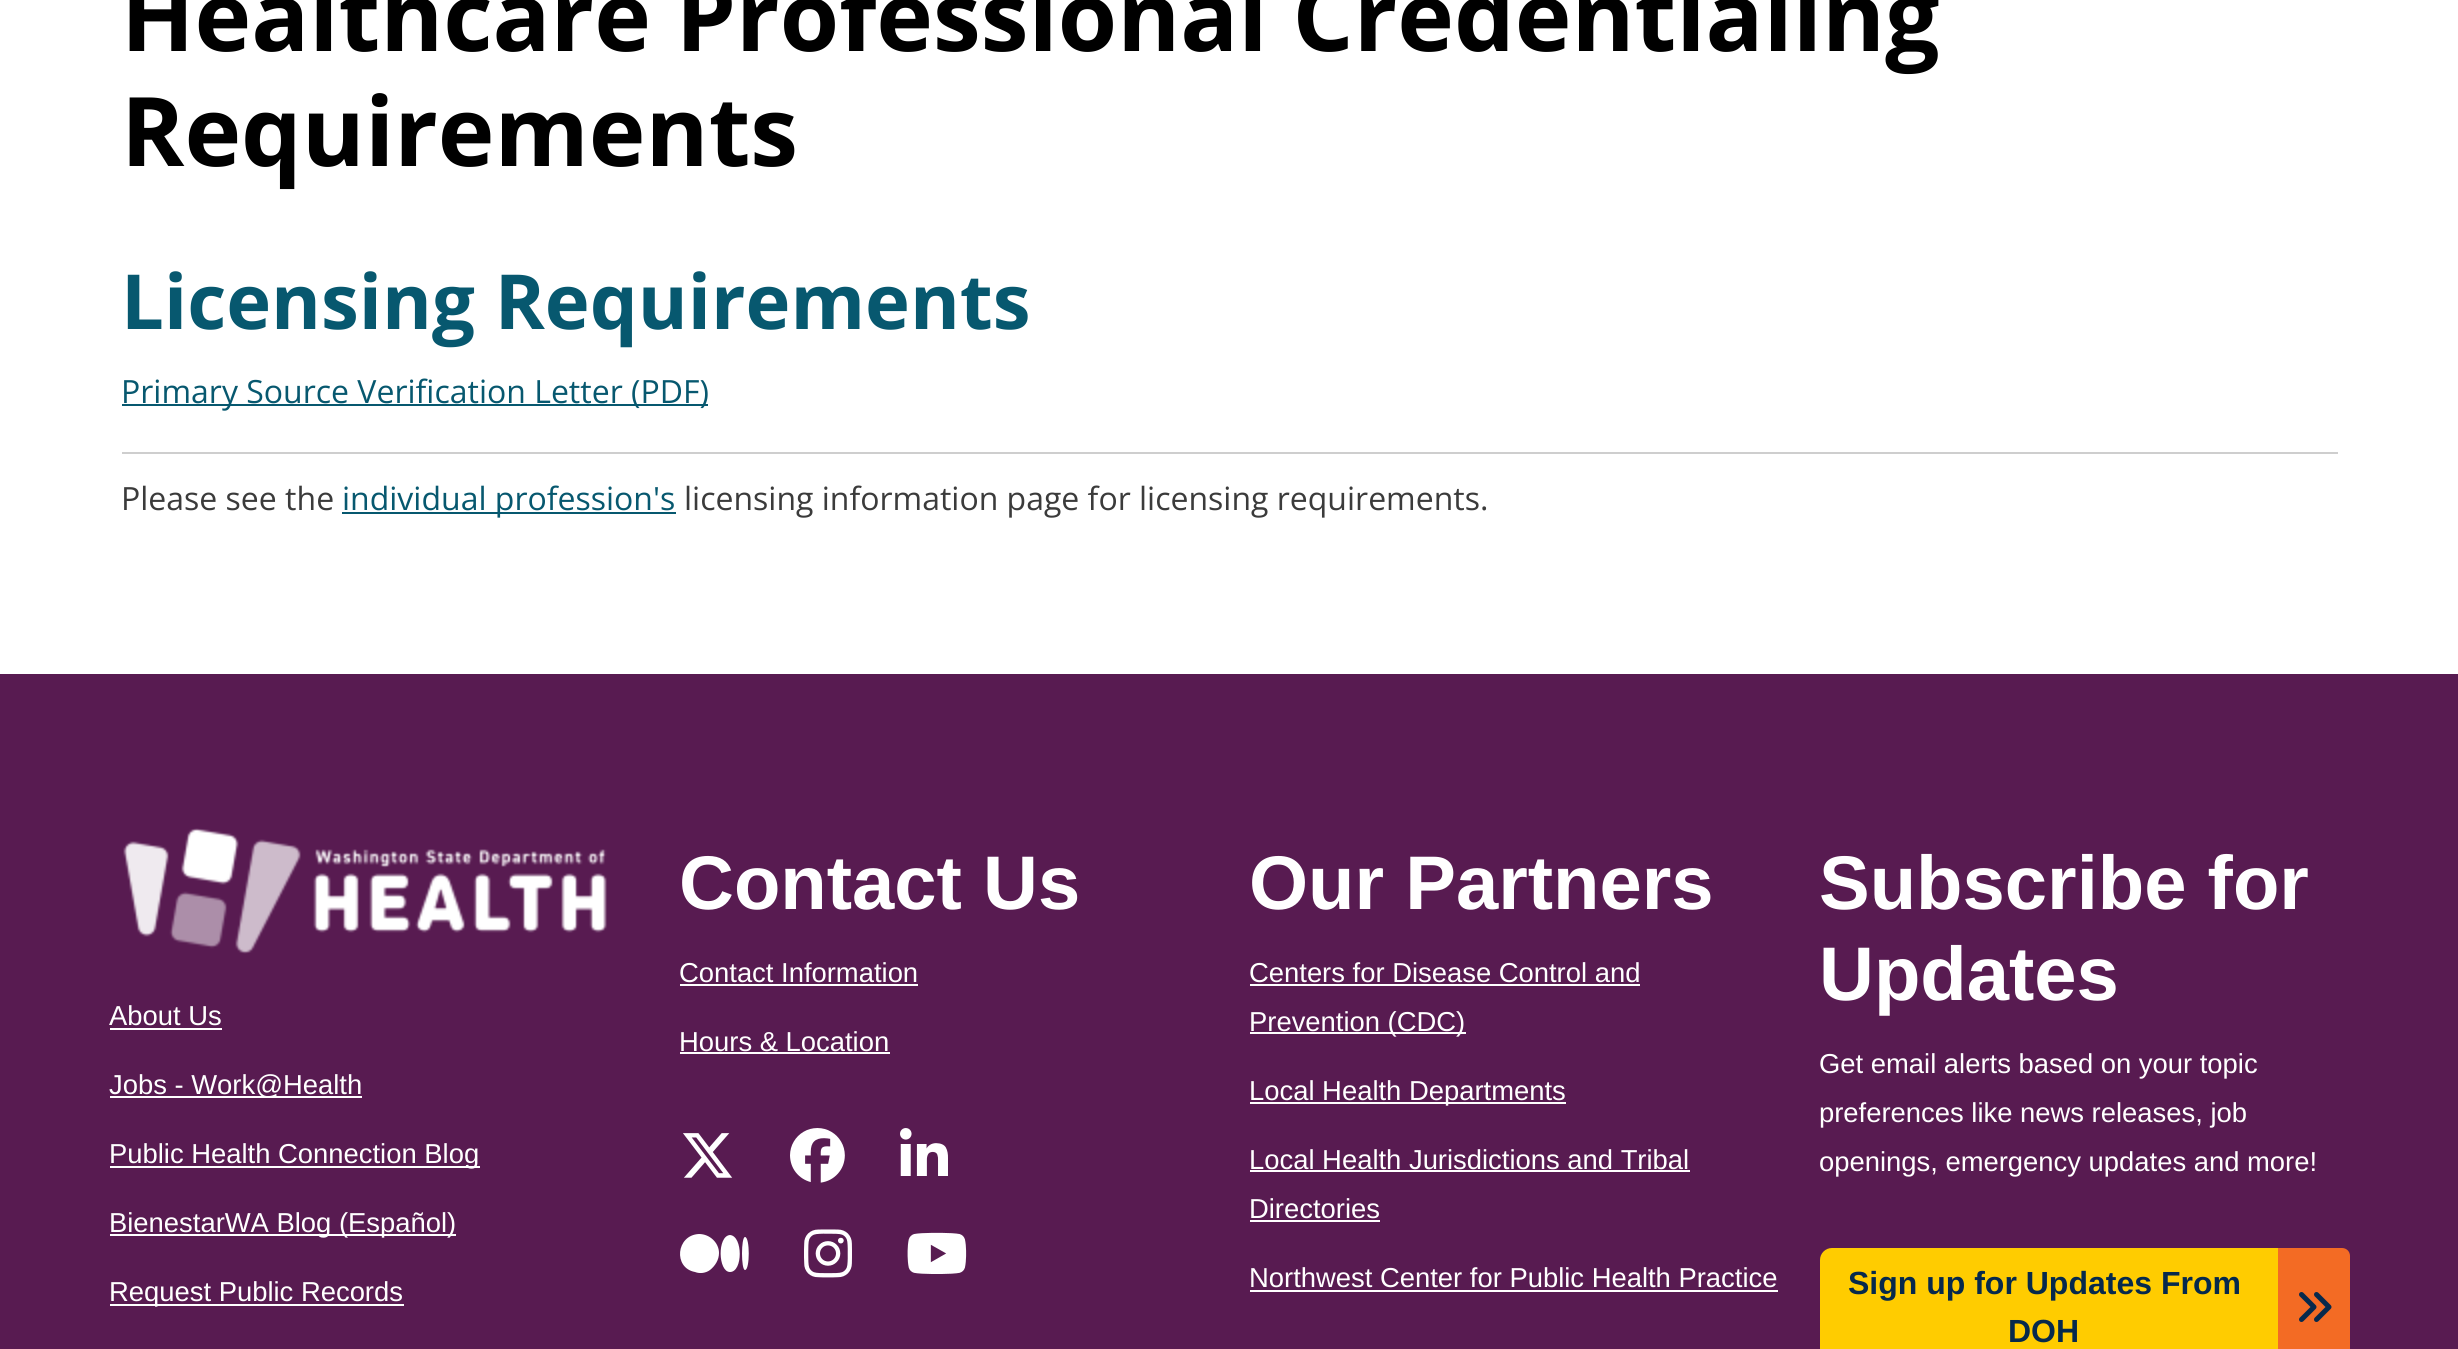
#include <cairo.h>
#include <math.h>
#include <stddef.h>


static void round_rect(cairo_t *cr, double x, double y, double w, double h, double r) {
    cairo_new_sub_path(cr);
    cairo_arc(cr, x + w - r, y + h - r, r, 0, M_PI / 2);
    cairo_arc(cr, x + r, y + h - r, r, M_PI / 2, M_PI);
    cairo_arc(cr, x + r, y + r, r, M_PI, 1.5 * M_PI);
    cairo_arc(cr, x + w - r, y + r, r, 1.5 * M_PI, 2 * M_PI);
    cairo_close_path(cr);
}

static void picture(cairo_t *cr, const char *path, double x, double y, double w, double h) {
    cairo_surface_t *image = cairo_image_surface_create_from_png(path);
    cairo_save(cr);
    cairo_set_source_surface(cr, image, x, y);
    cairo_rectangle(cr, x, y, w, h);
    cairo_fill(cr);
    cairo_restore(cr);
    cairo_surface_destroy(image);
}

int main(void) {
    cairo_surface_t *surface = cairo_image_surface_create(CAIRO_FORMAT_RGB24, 2458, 1349);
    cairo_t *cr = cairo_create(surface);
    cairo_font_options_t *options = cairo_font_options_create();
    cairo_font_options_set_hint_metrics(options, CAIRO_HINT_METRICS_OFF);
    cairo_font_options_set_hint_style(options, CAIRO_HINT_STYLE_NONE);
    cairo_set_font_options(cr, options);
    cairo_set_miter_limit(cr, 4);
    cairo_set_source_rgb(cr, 1, 1, 1);
    cairo_paint(cr);
    cairo_select_font_face(cr, "Open Sans", CAIRO_FONT_SLANT_NORMAL, CAIRO_FONT_WEIGHT_BOLD);
    cairo_set_font_size(cr, 96);
    cairo_set_source_rgb(cr, 0, 0, 0);
    cairo_move_to(cr, 121, 51);
    cairo_show_text(cr, "Healthcare Professional Credentialing");
    cairo_move_to(cr, 121, 166);
    cairo_show_text(cr, "Requirements");
    cairo_set_font_size(cr, 76);
    cairo_set_source_rgb(cr, 0.031, 0.345, 0.435);
    cairo_move_to(cr, 121, 329);
    cairo_show_text(cr, "Licensing Requirements");
    cairo_rectangle(cr, 122, 404, 586, 2);
    cairo_fill(cr);
    cairo_select_font_face(cr, "Open Sans", CAIRO_FONT_SLANT_NORMAL, CAIRO_FONT_WEIGHT_NORMAL);
    cairo_set_font_size(cr, 32);
    cairo_move_to(cr, 121, 403);
    cairo_show_text(cr, "Primary Source Verification Letter (PDF)");
    cairo_set_source_rgb(cr, 0.808, 0.808, 0.808);
    cairo_rectangle(cr, 122, 452, 2216, 2);
    cairo_fill(cr);
    cairo_set_source_rgb(cr, 0.231, 0.231, 0.231);
    cairo_move_to(cr, 121, 510);
    cairo_show_text(cr, "Please see the");
    cairo_set_source_rgb(cr, 0.031, 0.345, 0.435);
    cairo_rectangle(cr, 342, 512, 334, 2);
    cairo_fill(cr);
    cairo_move_to(cr, 342, 510);
    cairo_show_text(cr, "individual profession's");
    cairo_set_source_rgb(cr, 0.231, 0.231, 0.231);
    cairo_move_to(cr, 684, 510);
    cairo_show_text(cr, "licensing information page for licensing requirements.");
    cairo_set_source_rgb(cr, 0.345, 0.106, 0.318);
    cairo_rectangle(cr, 0, 674, 2458, 675);
    cairo_fill(cr);
    picture(cr, "img1.png", 123, 828, 484, 126);
    cairo_select_font_face(cr, "Liberation Sans", CAIRO_FONT_SLANT_NORMAL, CAIRO_FONT_WEIGHT_NORMAL);
    cairo_set_font_size(cr, 27.4);
    cairo_set_source_rgb(cr, 1, 1, 1);
    cairo_move_to(cr, 109, 1025);
    cairo_show_text(cr, "About Us");
    cairo_rectangle(cr, 110, 1028, 112, 2);
    cairo_fill(cr);
    cairo_rectangle(cr, 110, 1096, 252, 2);
    cairo_fill(cr);
    cairo_move_to(cr, 109, 1094);
    cairo_show_text(cr, "Jobs - Work@Health");
    cairo_rectangle(cr, 110, 1166, 370, 2);
    cairo_fill(cr);
    cairo_move_to(cr, 109, 1163);
    cairo_show_text(cr, "Public Health Connection Blog");
    cairo_rectangle(cr, 110, 1234, 346, 2);
    cairo_fill(cr);
    cairo_move_to(cr, 109, 1232);
    cairo_show_text(cr, "BienestarWA Blog (Español)");
    cairo_rectangle(cr, 110, 1304, 294, 2);
    cairo_fill(cr);
    cairo_move_to(cr, 109, 1301);
    cairo_show_text(cr, "Request Public Records");
    cairo_select_font_face(cr, "Liberation Sans", CAIRO_FONT_SLANT_NORMAL, CAIRO_FONT_WEIGHT_BOLD);
    cairo_set_font_size(cr, 76);
    cairo_move_to(cr, 679, 909);
    cairo_show_text(cr, "Contact Us");
    cairo_select_font_face(cr, "Liberation Sans", CAIRO_FONT_SLANT_NORMAL, CAIRO_FONT_WEIGHT_NORMAL);
    cairo_set_font_size(cr, 27.4);
    cairo_move_to(cr, 679, 982);
    cairo_show_text(cr, "Contact Information");
    cairo_rectangle(cr, 680, 984, 238, 2);
    cairo_fill(cr);
    cairo_move_to(cr, 679, 1051);
    cairo_show_text(cr, "Hours & Location");
    cairo_rectangle(cr, 680, 1052, 210, 2);
    cairo_fill(cr);
    picture(cr, "img2.png", 683, 1133, 50, 45);
    picture(cr, "img3.png", 790, 1128, 55, 55);
    picture(cr, "img4.png", 900, 1128, 48, 48);
    cairo_new_path(cr);
    cairo_move_to(cr, 699, 1234);
    cairo_curve_to(cr, 676, 1235, 673, 1268, 695, 1272);
    cairo_curve_to(cr, 700, 1274, 706, 1273, 710, 1270);
    cairo_curve_to(cr, 715, 1266, 719, 1260, 719, 1253);
    cairo_curve_to(cr, 719, 1243, 710, 1234, 699, 1234);
    cairo_close_path(cr);
    cairo_move_to(cr, 730, 1235);
    cairo_curve_to(cr, 717, 1236, 718, 1272, 730, 1272);
    cairo_curve_to(cr, 743, 1272, 743, 1236, 730, 1235);
    cairo_close_path(cr);
    cairo_move_to(cr, 745, 1237);
    cairo_curve_to(cr, 741, 1237, 741, 1270, 745, 1270);
    cairo_curve_to(cr, 750, 1270, 750, 1237, 745, 1237);
    cairo_close_path(cr);
    cairo_fill(cr);
    picture(cr, "img5.png", 804, 1229, 48, 49);
    picture(cr, "img6.png", 907, 1232, 60, 42);
    cairo_select_font_face(cr, "Liberation Sans", CAIRO_FONT_SLANT_NORMAL, CAIRO_FONT_WEIGHT_BOLD);
    cairo_set_font_size(cr, 76);
    cairo_move_to(cr, 1249, 909);
    cairo_show_text(cr, "Our Partners");
    cairo_select_font_face(cr, "Liberation Sans", CAIRO_FONT_SLANT_NORMAL, CAIRO_FONT_WEIGHT_NORMAL);
    cairo_set_font_size(cr, 27.4);
    cairo_move_to(cr, 1249, 982);
    cairo_show_text(cr, "Centers for Disease Control and");
    cairo_rectangle(cr, 1250, 984, 390, 2);
    cairo_fill(cr);
    cairo_rectangle(cr, 1250, 1032, 216, 2);
    cairo_fill(cr);
    cairo_move_to(cr, 1249, 1031);
    cairo_show_text(cr, "Prevention (CDC)");
    cairo_rectangle(cr, 1250, 1102, 316, 2);
    cairo_fill(cr);
    cairo_move_to(cr, 1249, 1100);
    cairo_show_text(cr, "Local Health Departments");
    cairo_move_to(cr, 1249, 1169);
    cairo_show_text(cr, "Local Health Jurisdictions and Tribal");
    cairo_rectangle(cr, 1250, 1170, 440, 2);
    cairo_fill(cr);
    cairo_move_to(cr, 1249, 1218);
    cairo_show_text(cr, "Directories");
    cairo_rectangle(cr, 1250, 1220, 130, 2);
    cairo_fill(cr);
    cairo_move_to(cr, 1249, 1287);
    cairo_show_text(cr, "Northwest Center for Public Health Practice");
    cairo_rectangle(cr, 1250, 1290, 528, 2);
    cairo_fill(cr);
    cairo_select_font_face(cr, "Liberation Sans", CAIRO_FONT_SLANT_NORMAL, CAIRO_FONT_WEIGHT_BOLD);
    cairo_set_font_size(cr, 76);
    cairo_move_to(cr, 1819, 909);
    cairo_show_text(cr, "Subscribe for");
    cairo_move_to(cr, 1819, 1000);
    cairo_show_text(cr, "Updates");
    cairo_select_font_face(cr, "Liberation Sans", CAIRO_FONT_SLANT_NORMAL, CAIRO_FONT_WEIGHT_NORMAL);
    cairo_set_font_size(cr, 27.4);
    cairo_move_to(cr, 1819, 1073);
    cairo_show_text(cr, "Get email alerts based on your topic");
    cairo_move_to(cr, 1819, 1122);
    cairo_show_text(cr, "preferences like news releases, job");
    cairo_move_to(cr, 1819, 1171);
    cairo_show_text(cr, "openings, emergency updates and more!");
    cairo_set_source_rgb(cr, 1, 0.8, 0);
    round_rect(cr, 1820, 1248, 530, 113, 12);
    cairo_fill(cr);
    cairo_select_font_face(cr, "Liberation Sans", CAIRO_FONT_SLANT_NORMAL, CAIRO_FONT_WEIGHT_BOLD);
    cairo_set_font_size(cr, 32);
    cairo_set_source_rgb(cr, 0.027, 0.161, 0.298);
    cairo_move_to(cr, 1848, 1294);
    cairo_show_text(cr, "Sign up for Updates From");
    cairo_set_source_rgb(cr, 0.953, 0.42, 0.141);
    cairo_new_path(cr);
    cairo_move_to(cr, 2278, 1248);
    cairo_line_to(cr, 2342, 1248);
    cairo_curve_to(cr, 2346.5, 1248, 2350, 1251.5, 2350, 1256);
    cairo_line_to(cr, 2350, 1349);
    cairo_curve_to(cr, 2350, 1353.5, 2346.5, 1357, 2342, 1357);
    cairo_line_to(cr, 2278, 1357);
    cairo_close_path(cr);
    cairo_fill(cr);
    picture(cr, "img7.png", 2299, 1292, 33, 30);
    cairo_set_source_rgb(cr, 0.027, 0.161, 0.298);
    cairo_move_to(cr, 2008, 1342);
    cairo_show_text(cr, "DOH");
    cairo_surface_write_to_png(surface, "page.png");
    cairo_font_options_destroy(options);
    cairo_destroy(cr);
    cairo_surface_destroy(surface);
    return 0;
}
